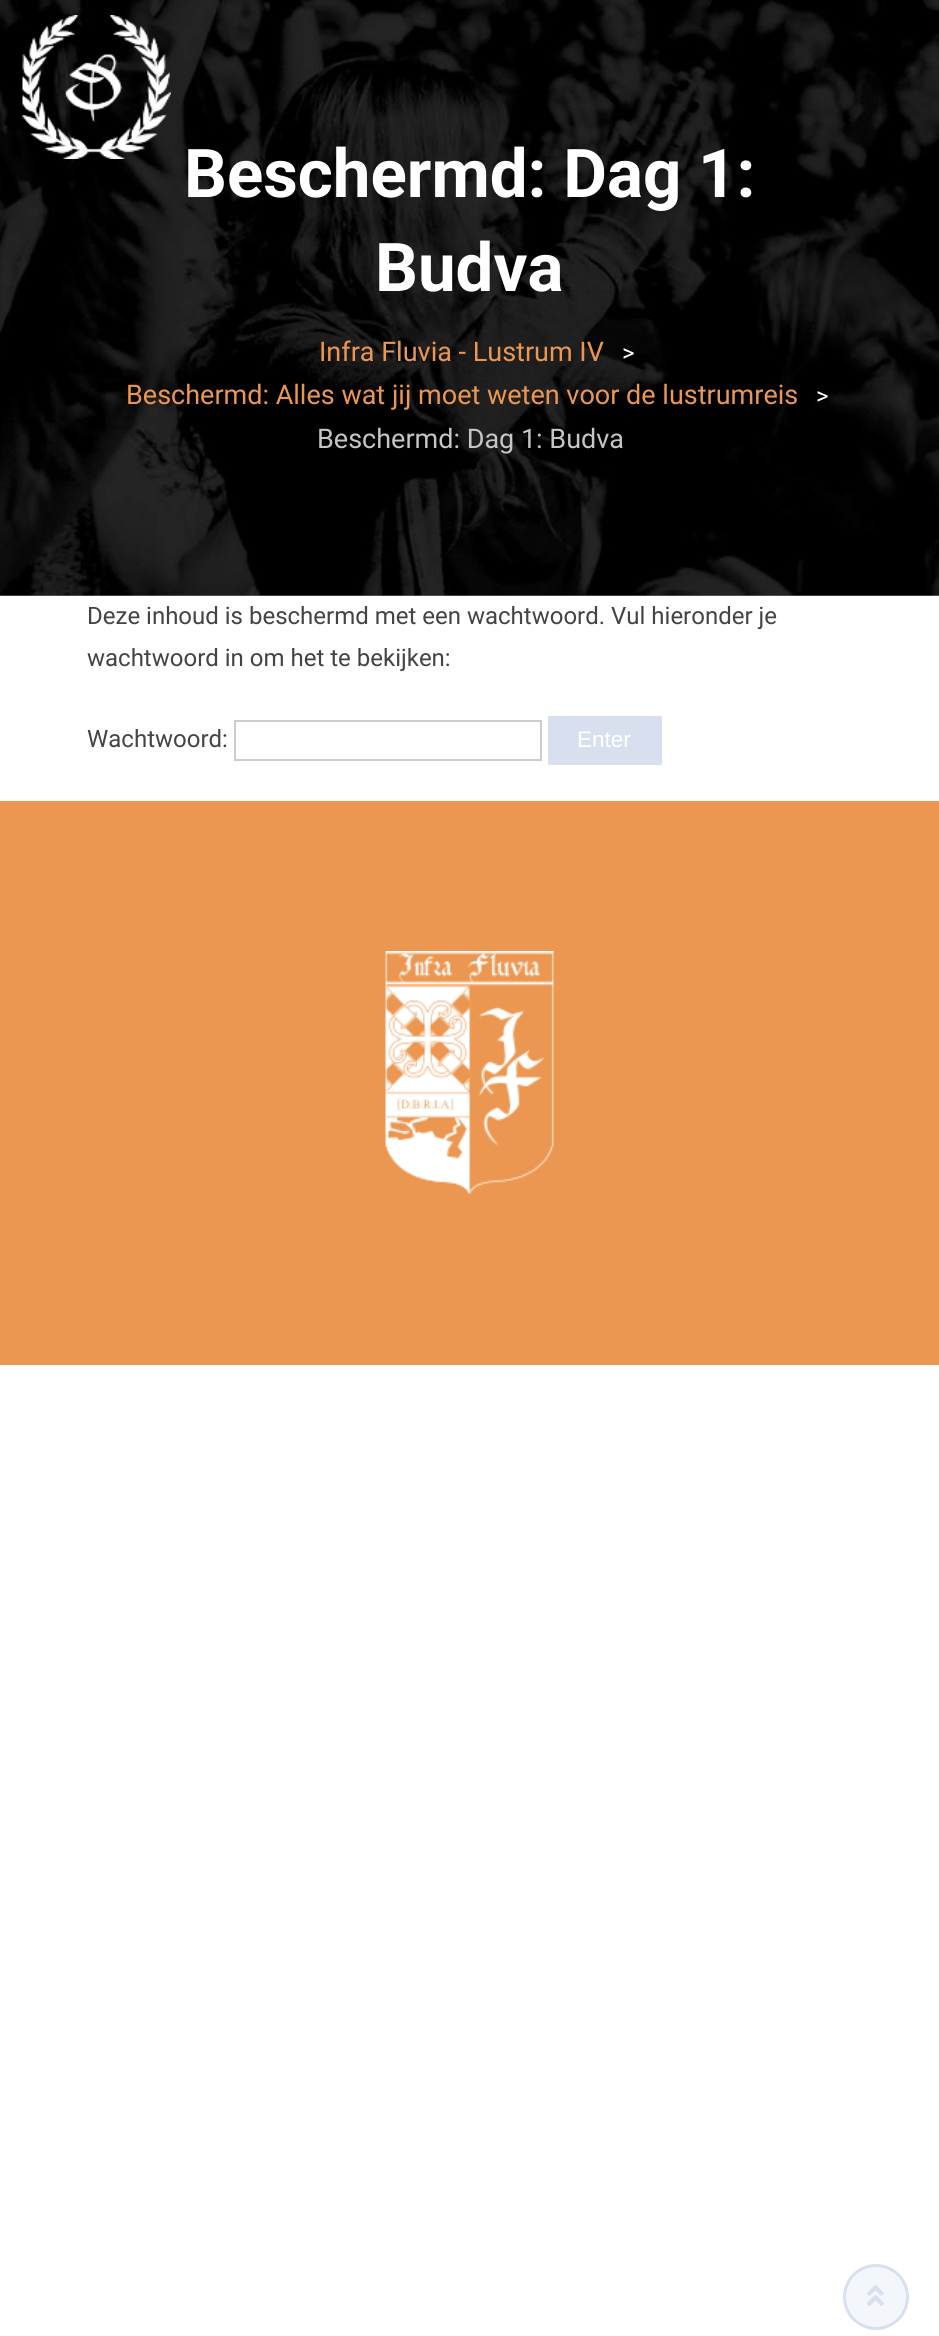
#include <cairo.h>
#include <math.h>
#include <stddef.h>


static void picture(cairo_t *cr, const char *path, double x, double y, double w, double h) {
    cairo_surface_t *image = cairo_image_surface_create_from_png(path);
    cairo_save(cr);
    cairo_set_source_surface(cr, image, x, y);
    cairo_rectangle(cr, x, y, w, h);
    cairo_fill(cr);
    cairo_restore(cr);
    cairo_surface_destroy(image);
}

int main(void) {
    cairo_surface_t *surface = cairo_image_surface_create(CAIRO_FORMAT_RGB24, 939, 2336);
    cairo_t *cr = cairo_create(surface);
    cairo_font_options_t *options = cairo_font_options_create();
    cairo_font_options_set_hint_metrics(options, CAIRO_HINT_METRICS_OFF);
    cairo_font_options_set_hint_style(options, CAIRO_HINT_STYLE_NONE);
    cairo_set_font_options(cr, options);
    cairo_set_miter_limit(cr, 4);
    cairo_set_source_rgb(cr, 1, 1, 1);
    cairo_paint(cr);
    cairo_set_source_rgb(cr, 0.502, 0.502, 0.502);
    cairo_rectangle(cr, 0, 595, 939, 1);
    cairo_fill(cr);
    picture(cr, "img2.png", 0, 0, 939, 596);
    picture(cr, "img1.png", 22, 15, 149, 144);
    cairo_select_font_face(cr, "Roboto", CAIRO_FONT_SLANT_NORMAL, CAIRO_FONT_WEIGHT_BOLD);
    cairo_set_font_size(cr, 67.25);
    cairo_set_source_rgb(cr, 1, 1, 1);
    cairo_move_to(cr, 184, 197);
    cairo_show_text(cr, "Beschermd: Dag 1:");
    cairo_move_to(cr, 375, 291);
    cairo_show_text(cr, "Budva");
    cairo_select_font_face(cr, "Roboto", CAIRO_FONT_SLANT_NORMAL, CAIRO_FONT_WEIGHT_NORMAL);
    cairo_set_font_size(cr, 27);
    cairo_set_source_rgb(cr, 0.922, 0.592, 0.318);
    cairo_move_to(cr, 319, 361);
    cairo_show_text(cr, "Infra Fluvia - Lustrum IV");
    cairo_set_font_size(cr, 24);
    cairo_set_source_rgb(cr, 1, 1, 1);
    cairo_move_to(cr, 622, 361);
    cairo_show_text(cr, ">");
    cairo_set_font_size(cr, 27);
    cairo_set_source_rgb(cr, 0.922, 0.592, 0.318);
    cairo_move_to(cr, 126, 404);
    cairo_show_text(cr, "Beschermd: Alles wat jij moet weten voor de lustrumreis");
    cairo_set_font_size(cr, 24);
    cairo_set_source_rgb(cr, 1, 1, 1);
    cairo_move_to(cr, 816, 404);
    cairo_show_text(cr, ">");
    cairo_set_font_size(cr, 27);
    cairo_set_source_rgb(cr, 0.776, 0.776, 0.776);
    cairo_move_to(cr, 317, 448);
    cairo_show_text(cr, "Beschermd: Dag 1: Budva");
    cairo_set_font_size(cr, 24);
    cairo_set_source_rgb(cr, 0.267, 0.267, 0.267);
    cairo_move_to(cr, 87, 624);
    cairo_show_text(cr, "Deze inhoud is beschermd met een wachtwoord. Vul hieronder je");
    cairo_move_to(cr, 87, 666);
    cairo_show_text(cr, "wachtwoord in om het te bekijken:");
    cairo_move_to(cr, 87, 747);
    cairo_show_text(cr, "Wachtwoord:");
    cairo_rectangle(cr, 235, 721, 306, 39);
    cairo_set_source_rgb(cr, 0.8, 0.8, 0.8);
    cairo_stroke(cr);
    cairo_set_source_rgb(cr, 0.847, 0.875, 0.933);
    cairo_rectangle(cr, 548, 716, 114, 49);
    cairo_fill(cr);
    cairo_select_font_face(cr, "Liberation Sans", CAIRO_FONT_SLANT_NORMAL, CAIRO_FONT_WEIGHT_NORMAL);
    cairo_set_font_size(cr, 22.5);
    cairo_set_source_rgb(cr, 1, 1, 1);
    cairo_move_to(cr, 577, 747);
    cairo_show_text(cr, "Enter");
    cairo_set_source_rgb(cr, 0.922, 0.592, 0.318);
    cairo_rectangle(cr, 0, 801, 939, 564);
    cairo_fill(cr);
    picture(cr, "img3.png", 385, 951, 169, 243);
    cairo_set_source_rgb(cr, 0.953, 0.961, 0.98);
    cairo_arc(cr, 876, 2297, 31.5, 0, 2 * M_PI);
    cairo_fill_preserve(cr);
    cairo_set_source_rgb(cr, 0.847, 0.875, 0.933);
    cairo_set_line_width(cr, 3);
    cairo_stroke(cr);
    picture(cr, "img4.png", 867, 2285, 17, 21);
    cairo_surface_write_to_png(surface, "page.png");
    cairo_font_options_destroy(options);
    cairo_destroy(cr);
    cairo_surface_destroy(surface);
    return 0;
}
